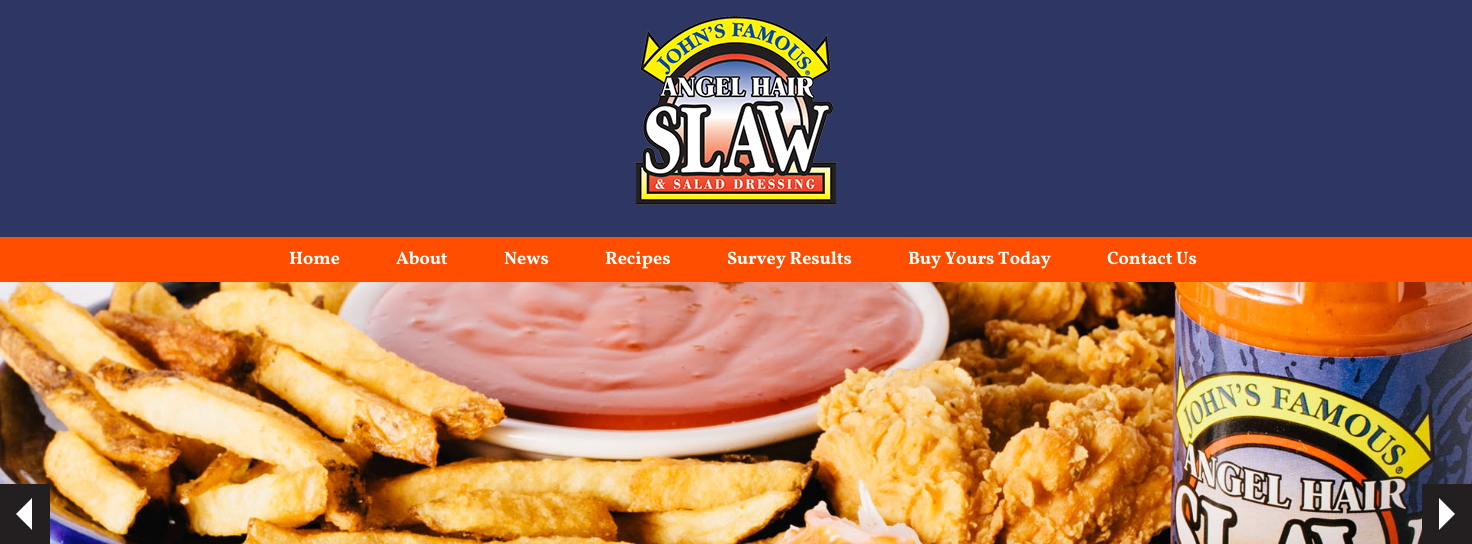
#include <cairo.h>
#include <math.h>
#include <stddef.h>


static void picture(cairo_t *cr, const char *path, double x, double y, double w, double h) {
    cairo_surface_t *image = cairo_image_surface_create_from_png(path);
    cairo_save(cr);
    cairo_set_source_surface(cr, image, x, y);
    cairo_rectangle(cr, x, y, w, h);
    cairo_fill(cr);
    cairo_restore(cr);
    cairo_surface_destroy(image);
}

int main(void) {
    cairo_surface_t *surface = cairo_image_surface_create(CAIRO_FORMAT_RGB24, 1472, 544);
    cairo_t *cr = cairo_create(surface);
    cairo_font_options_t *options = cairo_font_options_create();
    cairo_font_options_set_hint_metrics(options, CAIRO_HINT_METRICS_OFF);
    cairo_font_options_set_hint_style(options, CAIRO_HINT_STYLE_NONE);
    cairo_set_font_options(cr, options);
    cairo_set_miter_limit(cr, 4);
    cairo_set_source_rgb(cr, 0.18, 0.212, 0.392);
    cairo_paint(cr);
    picture(cr, "img1.png", 636, 16, 200, 189);
    cairo_set_source_rgb(cr, 1, 0.306, 0);
    cairo_rectangle(cr, 0, 237, 1472, 45);
    cairo_fill(cr);
    cairo_select_font_face(cr, "Vollkorn", CAIRO_FONT_SLANT_NORMAL, CAIRO_FONT_WEIGHT_BOLD);
    cairo_set_font_size(cr, 18);
    cairo_set_source_rgb(cr, 1, 1, 1);
    cairo_move_to(cr, 289, 264);
    cairo_show_text(cr, "Home");
    cairo_move_to(cr, 396, 264);
    cairo_show_text(cr, "About");
    cairo_move_to(cr, 504, 264);
    cairo_show_text(cr, "News");
    cairo_move_to(cr, 605, 264);
    cairo_show_text(cr, "Recipes");
    cairo_move_to(cr, 727, 264);
    cairo_show_text(cr, "Survey Results");
    cairo_move_to(cr, 908, 264);
    cairo_show_text(cr, "Buy Yours Today");
    cairo_move_to(cr, 1107, 264);
    cairo_show_text(cr, "Contact Us");
    picture(cr, "img2.png", 0, 282, 1472, 262);
    cairo_set_source_rgb(cr, 0.137, 0.122, 0.125);
    cairo_rectangle(cr, 0, 484, 50, 60);
    cairo_fill(cr);
    cairo_set_source_rgb(cr, 1, 1, 1);
    cairo_new_path(cr);
    cairo_move_to(cr, 32, 498);
    cairo_line_to(cr, 32, 530);
    cairo_line_to(cr, 16, 514);
    cairo_close_path(cr);
    cairo_fill(cr);
    cairo_set_source_rgb(cr, 0.137, 0.122, 0.125);
    cairo_rectangle(cr, 1422, 484, 50, 60);
    cairo_fill(cr);
    cairo_set_source_rgb(cr, 1, 1, 1);
    cairo_new_path(cr);
    cairo_move_to(cr, 1439, 530);
    cairo_line_to(cr, 1439, 498);
    cairo_line_to(cr, 1455, 514);
    cairo_close_path(cr);
    cairo_fill(cr);
    cairo_surface_write_to_png(surface, "page.png");
    cairo_font_options_destroy(options);
    cairo_destroy(cr);
    cairo_surface_destroy(surface);
    return 0;
}
